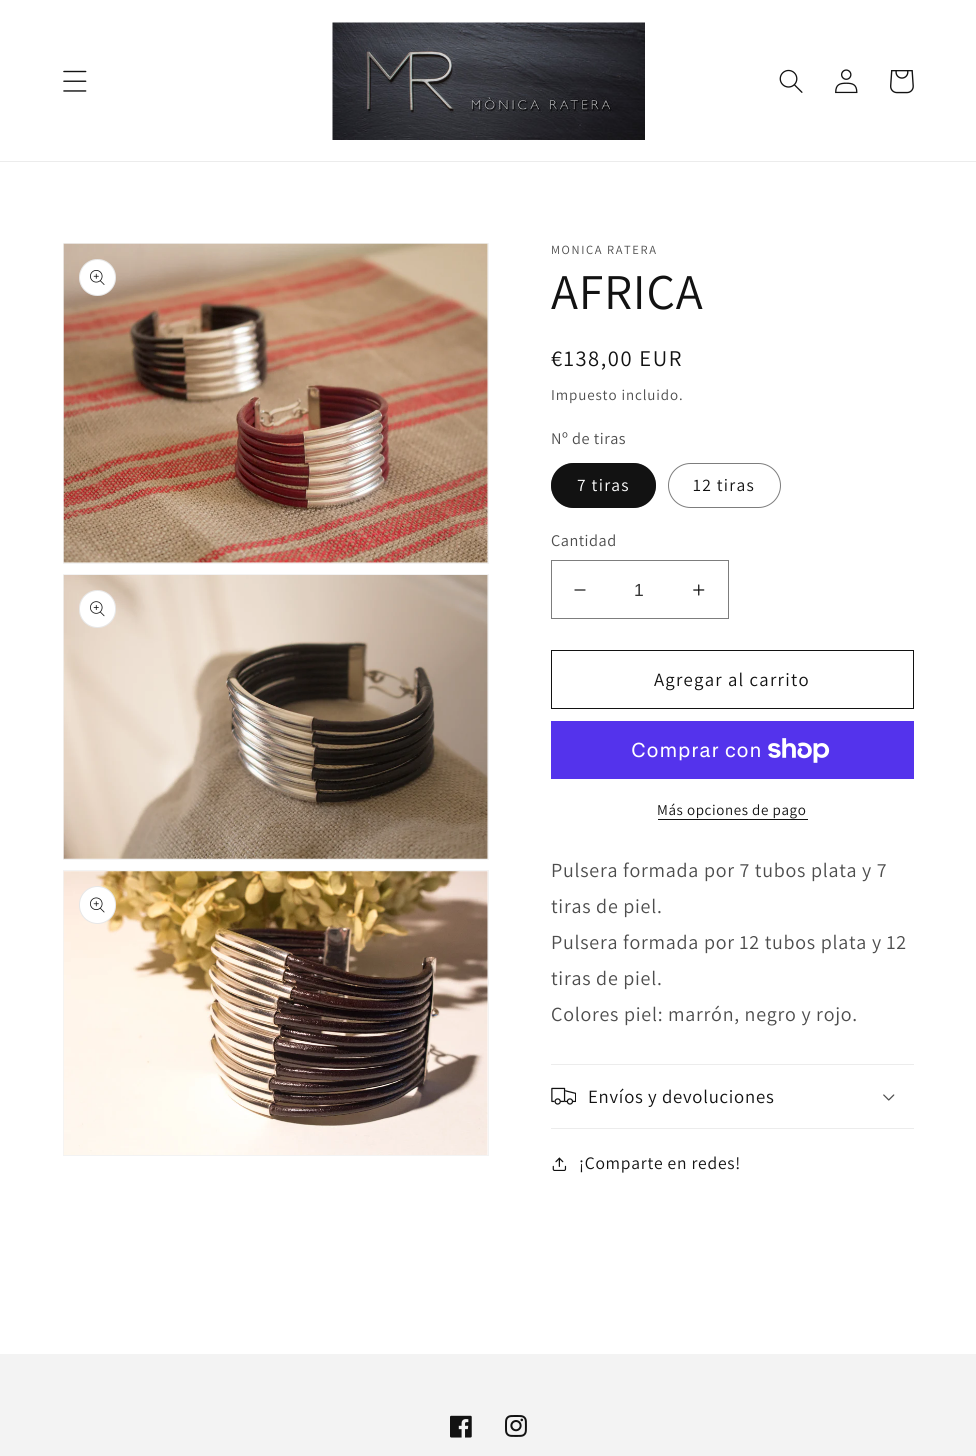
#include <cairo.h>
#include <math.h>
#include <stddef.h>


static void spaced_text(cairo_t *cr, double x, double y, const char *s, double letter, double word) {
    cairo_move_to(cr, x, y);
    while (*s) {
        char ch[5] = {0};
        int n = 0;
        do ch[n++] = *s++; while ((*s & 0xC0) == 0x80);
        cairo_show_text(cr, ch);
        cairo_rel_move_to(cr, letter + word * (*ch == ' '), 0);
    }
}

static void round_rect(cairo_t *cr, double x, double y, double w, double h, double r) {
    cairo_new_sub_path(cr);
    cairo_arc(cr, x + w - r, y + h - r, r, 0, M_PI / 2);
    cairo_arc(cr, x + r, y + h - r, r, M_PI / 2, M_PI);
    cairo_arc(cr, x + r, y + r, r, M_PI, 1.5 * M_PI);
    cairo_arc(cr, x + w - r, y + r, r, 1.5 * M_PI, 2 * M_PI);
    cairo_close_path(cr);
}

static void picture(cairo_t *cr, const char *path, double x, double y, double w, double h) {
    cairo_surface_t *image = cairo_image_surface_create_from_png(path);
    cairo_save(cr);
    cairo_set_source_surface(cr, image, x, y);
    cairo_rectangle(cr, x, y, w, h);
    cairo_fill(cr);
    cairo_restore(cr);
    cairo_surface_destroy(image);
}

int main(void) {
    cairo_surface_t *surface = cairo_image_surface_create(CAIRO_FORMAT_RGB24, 976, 1456);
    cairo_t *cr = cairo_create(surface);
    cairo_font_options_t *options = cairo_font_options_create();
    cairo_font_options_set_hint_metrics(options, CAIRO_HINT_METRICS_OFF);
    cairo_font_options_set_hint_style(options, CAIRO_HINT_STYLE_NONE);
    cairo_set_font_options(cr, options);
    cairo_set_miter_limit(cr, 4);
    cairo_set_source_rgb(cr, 1, 1, 1);
    cairo_paint(cr);
    cairo_set_source_rgb(cr, 0.925, 0.925, 0.925);
    cairo_rectangle(cr, 0, 161, 976, 1);
    cairo_fill(cr);
    picture(cr, "img1.png", 63, 70, 24, 22);
    picture(cr, "img2.png", 332, 22, 313, 118);
    picture(cr, "img3.png", 779, 69, 24, 24);
    picture(cr, "img4.png", 835, 69, 23, 25);
    picture(cr, "img5.png", 890, 70, 24, 24);
    cairo_rectangle(cr, 63.5, 243.5, 425, 320);
    cairo_set_source_rgb(cr, 0.953, 0.953, 0.953);
    cairo_set_line_width(cr, 1);
    cairo_stroke(cr);
    picture(cr, "img6.png", 63, 243, 425, 320);
    cairo_set_source_rgb(cr, 1, 1, 1);
    cairo_arc(cr, 97.5, 277.5, 18.5, 0, 2 * M_PI);
    cairo_fill(cr);
    cairo_arc(cr, 97.5, 277.5, 18, 0, 2 * M_PI);
    cairo_set_source_rgba(cr, 0.071, 0.071, 0.071, 0.1);
    cairo_stroke(cr);
    picture(cr, "img7.png", 90, 270, 15, 15);
    cairo_rectangle(cr, 63.5, 574.5, 425, 285);
    cairo_set_source_rgb(cr, 0.953, 0.953, 0.953);
    cairo_stroke(cr);
    picture(cr, "img8.png", 63, 575, 425, 284);
    cairo_set_source_rgb(cr, 1, 1, 1);
    round_rect(cr, 79, 590, 37, 38, 18.5);
    cairo_fill(cr);
    round_rect(cr, 79.5, 590.5, 36, 37, 18);
    cairo_set_source_rgba(cr, 0.071, 0.071, 0.071, 0.1);
    cairo_stroke(cr);
    picture(cr, "img9.png", 90, 601, 15, 16);
    cairo_rectangle(cr, 63.5, 870.5, 425, 285);
    cairo_set_source_rgb(cr, 0.953, 0.953, 0.953);
    cairo_stroke(cr);
    picture(cr, "img10.png", 63, 871, 425, 284);
    cairo_set_source_rgb(cr, 1, 1, 1);
    round_rect(cr, 79, 886, 37, 38, 18.5);
    cairo_fill(cr);
    round_rect(cr, 79.5, 886.5, 36, 37, 18);
    cairo_set_source_rgba(cr, 0.071, 0.071, 0.071, 0.1);
    cairo_stroke(cr);
    picture(cr, "img11.png", 90, 897, 15, 16);
    cairo_select_font_face(cr, "Assistant", CAIRO_FONT_SLANT_NORMAL, CAIRO_FONT_WEIGHT_NORMAL);
    cairo_set_font_size(cr, 12.5);
    cairo_set_source_rgb(cr, 0.302, 0.302, 0.302);
    spaced_text(cr, 551, 254, "MONICA RATERA", 1.6, 0);
    cairo_set_font_size(cr, 50);
    cairo_set_source_rgb(cr, 0.071, 0.071, 0.071);
    spaced_text(cr, 551, 309, "AFRICA", 0.75, 0);
    cairo_set_font_size(cr, 22.5);
    spaced_text(cr, 551, 366, "€138,00 EUR", 1.6, 0);
    cairo_set_font_size(cr, 15);
    cairo_set_source_rgb(cr, 0.302, 0.302, 0.302);
    spaced_text(cr, 551, 400, "Impuesto incluido.", 0.9, 0);
    cairo_set_font_size(cr, 16.25);
    spaced_text(cr, 551, 444, "Nº de tiras", 0.5, 0);
    cairo_set_source_rgb(cr, 0.071, 0.071, 0.071);
    round_rect(cr, 551, 463, 105, 45, 22.5);
    cairo_fill(cr);
    round_rect(cr, 551.5, 463.5, 104, 44, 22);
    cairo_set_source_rgba(cr, 0.071, 0.071, 0.071, 0.55);
    cairo_stroke(cr);
    cairo_set_font_size(cr, 17.5);
    cairo_set_source_rgb(cr, 1, 1, 1);
    spaced_text(cr, 577, 491, "7 tiras", 1.25, 0);
    round_rect(cr, 668.5, 463.5, 112, 44, 22);
    cairo_set_source_rgb(cr, 0.49, 0.49, 0.49);
    cairo_stroke(cr);
    cairo_set_source_rgb(cr, 0.071, 0.071, 0.071);
    spaced_text(cr, 693, 491, "12 tiras", 1.25, 0);
    cairo_set_font_size(cr, 16.25);
    cairo_set_source_rgb(cr, 0.302, 0.302, 0.302);
    spaced_text(cr, 551, 546, "Cantidad", 0.5, 0);
    picture(cr, "img12.png", 574, 589, 12, 2);
    picture(cr, "img13.png", 693, 584, 12, 12);
    cairo_rectangle(cr, 551.5, 560.5, 177, 58);
    cairo_set_source_rgb(cr, 0.49, 0.49, 0.49);
    cairo_stroke(cr);
    cairo_select_font_face(cr, "Liberation Sans", CAIRO_FONT_SLANT_NORMAL, CAIRO_FONT_WEIGHT_NORMAL);
    cairo_set_font_size(cr, 17.5);
    cairo_set_source_rgb(cr, 0.212, 0.212, 0.212);
    cairo_move_to(cr, 634, 596);
    cairo_show_text(cr, "1");
    cairo_rectangle(cr, 551.5, 650.5, 362, 58);
    cairo_set_source_rgb(cr, 0.071, 0.071, 0.071);
    cairo_stroke(cr);
    cairo_select_font_face(cr, "Assistant", CAIRO_FONT_SLANT_NORMAL, CAIRO_FONT_WEIGHT_NORMAL);
    cairo_set_font_size(cr, 18.75);
    spaced_text(cr, 654, 686, "Agregar al carrito", 1.25, 0);
    cairo_set_source_rgb(cr, 0.329, 0.2, 0.922);
    cairo_rectangle(cr, 551, 721, 363, 58);
    cairo_fill(cr);
    cairo_select_font_face(cr, "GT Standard", CAIRO_FONT_SLANT_NORMAL, CAIRO_FONT_WEIGHT_NORMAL);
    cairo_set_font_size(cr, 20);
    cairo_set_source_rgb(cr, 1, 1, 1);
    spaced_text(cr, 631, 757, "Comprar con", 0.75, 0);
    picture(cr, "img14.png", 768, 738, 62, 25);
    cairo_select_font_face(cr, "Assistant", CAIRO_FONT_SLANT_NORMAL, CAIRO_FONT_WEIGHT_NORMAL);
    cairo_set_font_size(cr, 15);
    cairo_set_source_rgb(cr, 0.071, 0.071, 0.071);
    spaced_text(cr, 657, 815, "Más opciones de pago", 0.6, 0);
    cairo_rectangle(cr, 658, 819, 150, 1);
    cairo_fill(cr);
    cairo_set_font_size(cr, 20);
    cairo_set_source_rgb(cr, 0.302, 0.302, 0.302);
    spaced_text(cr, 551, 877, "Pulsera formada por 7 tubos plata y 7", 0.75, 0);
    spaced_text(cr, 551, 913, "tiras de piel.", 0.75, 0);
    spaced_text(cr, 551, 949, "Pulsera formada por 12 tubos plata y 12", 0.75, 0);
    spaced_text(cr, 551, 985, "tiras de piel.", 0.75, 0);
    spaced_text(cr, 551, 1021, "Colores piel: marrón, negro y rojo.", 0.75, 0);
    cairo_set_source_rgb(cr, 0.925, 0.925, 0.925);
    cairo_rectangle(cr, 551, 1064, 363, 1);
    cairo_fill(cr);
    cairo_rectangle(cr, 551, 1128, 363, 1);
    cairo_fill(cr);
    picture(cr, "img15.png", 551, 1087, 25, 18);
    cairo_set_font_size(cr, 18.75);
    cairo_set_source_rgb(cr, 0.071, 0.071, 0.071);
    spaced_text(cr, 588, 1103, "Envíos y devoluciones", 0.75, 0);
    picture(cr, "img16.png", 883, 1094, 12, 7);
    picture(cr, "img17.png", 552, 1157, 15, 14);
    cairo_set_font_size(cr, 17.5);
    spaced_text(cr, 579, 1169, "¡Comparte en redes!", 0.75, 0);
    cairo_set_source_rgb(cr, 0.953, 0.953, 0.953);
    cairo_rectangle(cr, 0, 1354, 976, 102);
    cairo_fill(cr);
    picture(cr, "img18.png", 450, 1415, 22, 23);
    picture(cr, "img19.png", 505, 1415, 22, 22);
    cairo_surface_write_to_png(surface, "page.png");
    cairo_font_options_destroy(options);
    cairo_destroy(cr);
    cairo_surface_destroy(surface);
    return 0;
}
